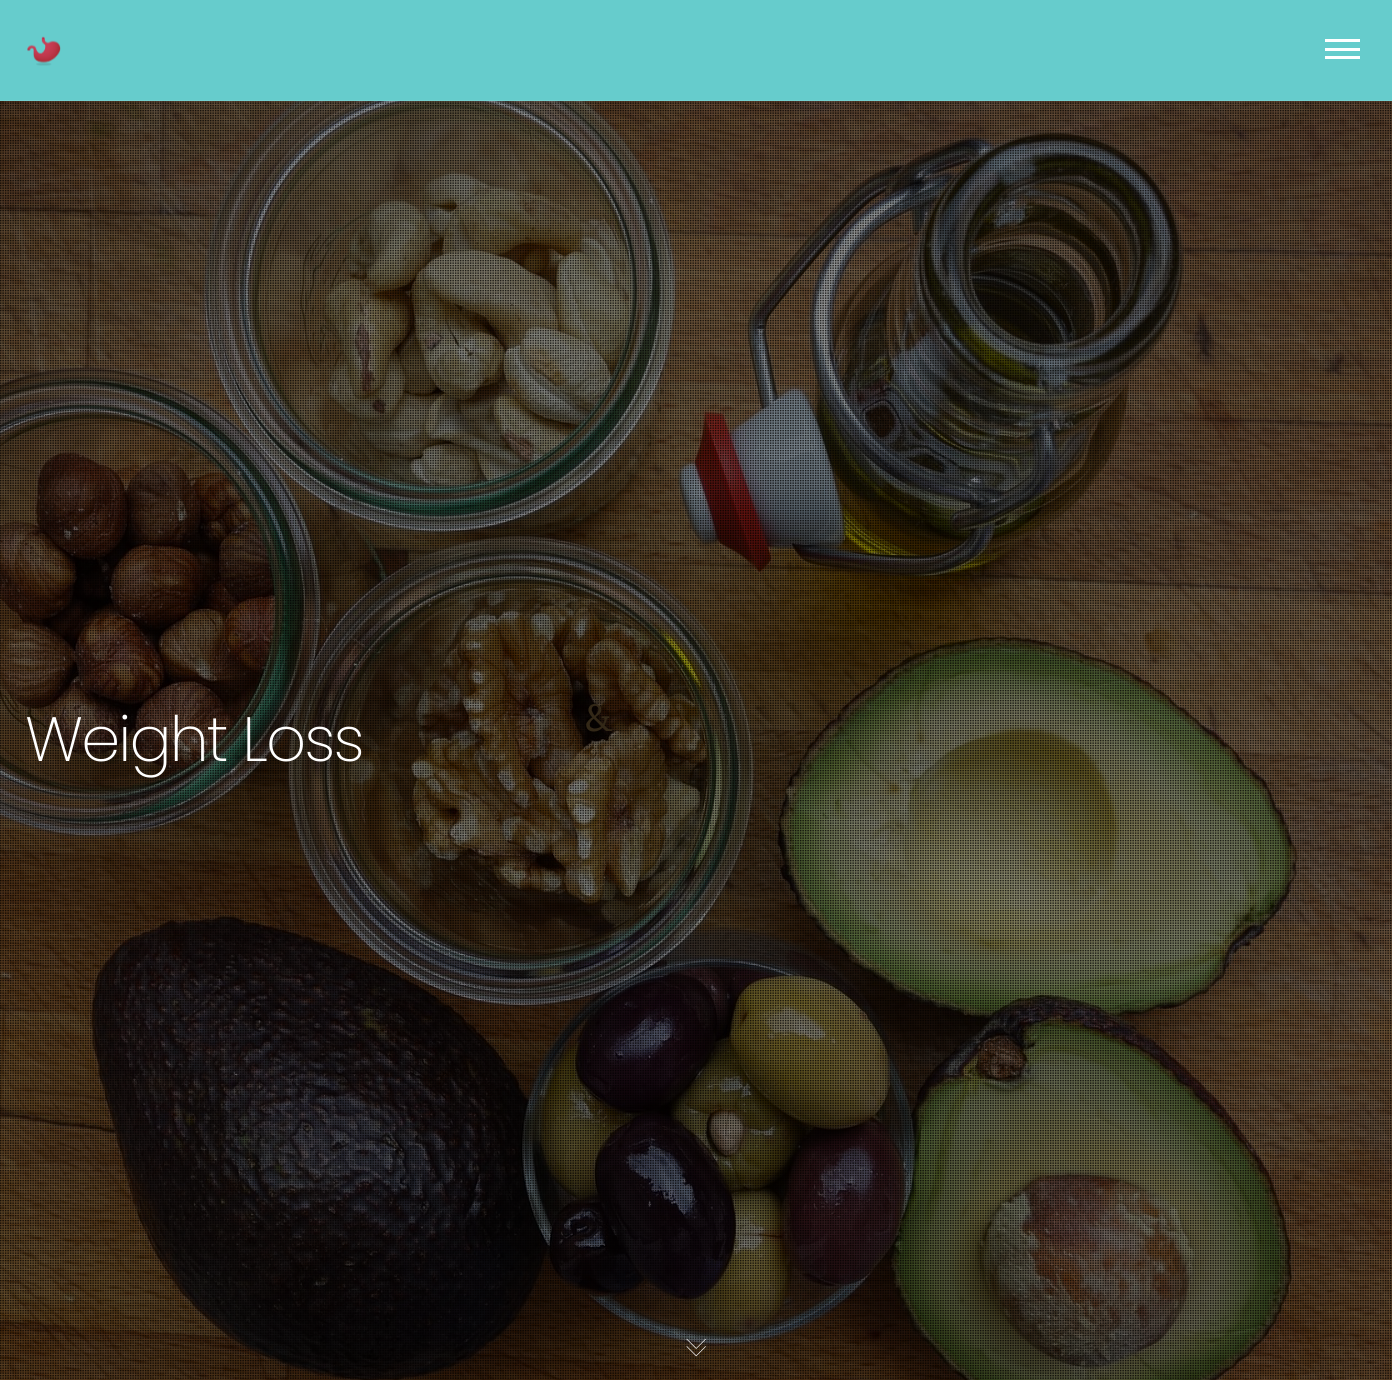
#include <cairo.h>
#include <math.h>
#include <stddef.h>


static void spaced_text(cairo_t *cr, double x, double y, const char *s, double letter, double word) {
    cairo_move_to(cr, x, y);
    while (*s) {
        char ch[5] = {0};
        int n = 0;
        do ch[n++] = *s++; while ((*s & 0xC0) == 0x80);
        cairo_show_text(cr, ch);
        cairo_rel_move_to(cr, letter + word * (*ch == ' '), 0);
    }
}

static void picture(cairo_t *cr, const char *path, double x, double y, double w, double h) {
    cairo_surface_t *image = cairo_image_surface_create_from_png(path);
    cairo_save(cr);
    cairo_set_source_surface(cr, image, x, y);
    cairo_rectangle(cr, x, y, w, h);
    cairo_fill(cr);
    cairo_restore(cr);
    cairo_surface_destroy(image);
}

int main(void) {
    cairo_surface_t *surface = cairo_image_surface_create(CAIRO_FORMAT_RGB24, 1392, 1380);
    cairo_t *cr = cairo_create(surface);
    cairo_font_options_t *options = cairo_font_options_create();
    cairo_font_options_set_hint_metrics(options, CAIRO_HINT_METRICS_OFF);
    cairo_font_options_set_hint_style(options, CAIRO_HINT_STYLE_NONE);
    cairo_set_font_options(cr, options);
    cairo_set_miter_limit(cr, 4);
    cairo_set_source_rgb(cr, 1, 1, 1);
    cairo_paint(cr);
    cairo_set_source_rgb(cr, 0.4, 0.8, 0.8);
    cairo_rectangle(cr, 0, 0, 1392, 100);
    cairo_fill(cr);
    cairo_set_source_rgb(cr, 0.459, 0.82, 0.82);
    cairo_rectangle(cr, 0, 100, 1392, 1);
    cairo_fill(cr);
    picture(cr, "img1.png", 27, 36, 34, 30);
    cairo_set_source_rgb(cr, 1, 1, 1);
    cairo_rectangle(cr, 1325, 48, 35, 3);
    cairo_fill(cr);
    cairo_rectangle(cr, 1325, 39, 35, 3);
    cairo_fill(cr);
    cairo_rectangle(cr, 1325, 56, 35, 3);
    cairo_fill(cr);
    picture(cr, "img2.png", 0, 101, 1392, 1279);
    picture(cr, "img3.png", 0, 101, 1392, 1279);
    cairo_select_font_face(cr, "Poppins ExtraLight", CAIRO_FONT_SLANT_NORMAL, CAIRO_FONT_WEIGHT_NORMAL);
    cairo_set_font_size(cr, 62.5);
    spaced_text(cr, 25, 761, "Weight Loss", -1.9, 0);
    picture(cr, "img4.png", 686, 1338, 20, 19);
    cairo_select_font_face(cr, "Sawarabi Mincho", CAIRO_FONT_SLANT_NORMAL, CAIRO_FONT_WEIGHT_NORMAL);
    cairo_set_font_size(cr, 38);
    cairo_set_source_rgb(cr, 0.2, 0.157, 0.09);
    cairo_move_to(cr, 584, 731);
    cairo_show_text(cr, "&");
    cairo_surface_write_to_png(surface, "page.png");
    cairo_font_options_destroy(options);
    cairo_destroy(cr);
    cairo_surface_destroy(surface);
    return 0;
}
